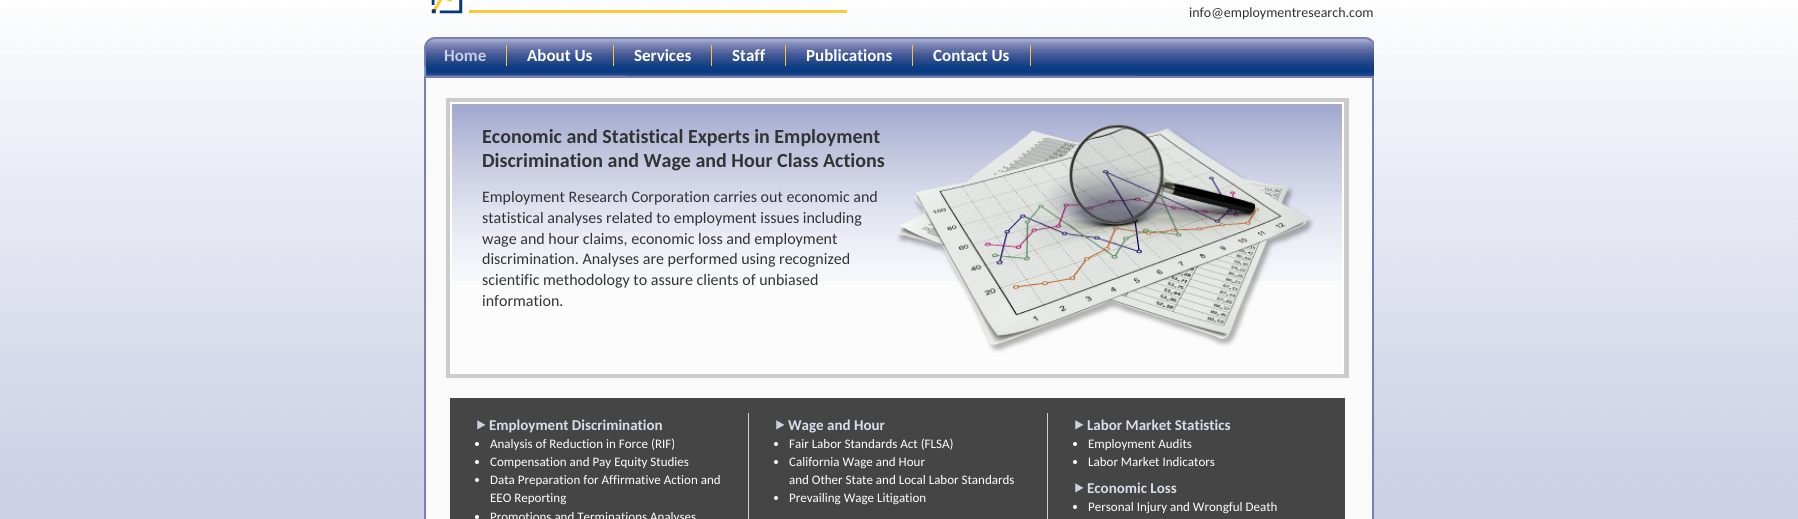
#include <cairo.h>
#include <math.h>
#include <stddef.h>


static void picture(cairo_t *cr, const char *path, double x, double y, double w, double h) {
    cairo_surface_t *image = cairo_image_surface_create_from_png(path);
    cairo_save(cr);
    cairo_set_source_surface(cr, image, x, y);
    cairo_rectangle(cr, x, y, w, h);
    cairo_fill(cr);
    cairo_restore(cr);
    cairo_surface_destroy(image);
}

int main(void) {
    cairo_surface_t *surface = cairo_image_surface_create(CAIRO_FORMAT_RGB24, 1798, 519);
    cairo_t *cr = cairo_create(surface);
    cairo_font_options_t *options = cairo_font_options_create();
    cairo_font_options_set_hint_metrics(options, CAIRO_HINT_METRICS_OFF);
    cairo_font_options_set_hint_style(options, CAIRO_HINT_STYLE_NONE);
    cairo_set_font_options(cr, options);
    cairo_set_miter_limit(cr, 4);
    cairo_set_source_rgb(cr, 1, 1, 1);
    cairo_paint(cr);
    picture(cr, "img1.png", 0, 0, 1798, 519);
    picture(cr, "img2.png", 431, 0, 32, 14);
    cairo_set_source_rgb(cr, 0.996, 0.788, 0.204);
    cairo_rectangle(cr, 469, 10, 378, 3);
    cairo_fill(cr);
    cairo_select_font_face(cr, "Carlito", CAIRO_FONT_SLANT_NORMAL, CAIRO_FONT_WEIGHT_NORMAL);
    cairo_set_font_size(cr, 14);
    cairo_set_source_rgb(cr, 0.2, 0.2, 0.2);
    cairo_move_to(cr, 1189, 17);
    cairo_show_text(cr, "info@employmentresearch.com");
    picture(cr, "img3.png", 424, 37, 950, 39);
    cairo_set_source_rgb(cr, 1, 0.769, 0.145);
    cairo_rectangle(cr, 506, 45, 1, 21);
    cairo_fill(cr);
    cairo_select_font_face(cr, "Carlito", CAIRO_FONT_SLANT_NORMAL, CAIRO_FONT_WEIGHT_BOLD);
    cairo_set_font_size(cr, 17);
    cairo_set_source_rgb(cr, 0.796, 0.808, 0.89);
    cairo_move_to(cr, 444, 61);
    cairo_show_text(cr, "Home");
    cairo_set_source_rgb(cr, 1, 0.769, 0.145);
    cairo_rectangle(cr, 613, 45, 1, 21);
    cairo_fill(cr);
    cairo_set_source_rgb(cr, 1, 1, 1);
    cairo_move_to(cr, 527, 61);
    cairo_show_text(cr, "About Us");
    cairo_set_source_rgb(cr, 1, 0.769, 0.145);
    cairo_rectangle(cr, 711, 45, 1, 21);
    cairo_fill(cr);
    cairo_set_source_rgb(cr, 1, 1, 1);
    cairo_move_to(cr, 634, 61);
    cairo_show_text(cr, "Services");
    cairo_set_source_rgb(cr, 1, 0.769, 0.145);
    cairo_rectangle(cr, 785, 45, 1, 21);
    cairo_fill(cr);
    cairo_set_source_rgb(cr, 1, 1, 1);
    cairo_move_to(cr, 732, 61);
    cairo_show_text(cr, "Staff");
    cairo_set_source_rgb(cr, 1, 0.769, 0.145);
    cairo_rectangle(cr, 912, 45, 1, 21);
    cairo_fill(cr);
    cairo_set_source_rgb(cr, 1, 1, 1);
    cairo_move_to(cr, 806, 61);
    cairo_show_text(cr, "Publications");
    cairo_set_source_rgb(cr, 1, 0.769, 0.145);
    cairo_rectangle(cr, 1030, 45, 1, 21);
    cairo_fill(cr);
    cairo_set_source_rgb(cr, 1, 1, 1);
    cairo_move_to(cr, 933, 61);
    cairo_show_text(cr, "Contact Us");
    cairo_set_source_rgb(cr, 0.98, 0.98, 0.98);
    cairo_rectangle(cr, 425, 77, 948, 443);
    cairo_fill_preserve(cr);
    cairo_set_source_rgb(cr, 0.463, 0.506, 0.698);
    cairo_stroke(cr);
    cairo_set_source_rgb(cr, 0.8, 0.8, 0.8);
    cairo_rectangle(cr, 446, 98, 903, 280);
    cairo_fill(cr);
    cairo_set_source_rgb(cr, 0.988, 0.988, 0.992);
    cairo_rectangle(cr, 452, 281, 890, 91);
    cairo_fill(cr);
    picture(cr, "img4.png", 452, 104, 890, 177);
    cairo_rectangle(cr, 451, 103, 892, 270);
    cairo_set_source_rgb(cr, 1, 1, 1);
    cairo_stroke(cr);
    cairo_set_font_size(cr, 20);
    cairo_set_source_rgb(cr, 0.2, 0.2, 0.2);
    cairo_move_to(cr, 482, 143);
    cairo_show_text(cr, "Economic and Statistical Experts in Employment");
    cairo_move_to(cr, 482, 167);
    cairo_show_text(cr, "Discrimination and Wage and Hour Class Actions");
    cairo_select_font_face(cr, "Carlito", CAIRO_FONT_SLANT_NORMAL, CAIRO_FONT_WEIGHT_NORMAL);
    cairo_set_font_size(cr, 16);
    cairo_move_to(cr, 482, 202);
    cairo_show_text(cr, "Employment Research Corporation carries out economic and");
    cairo_move_to(cr, 482, 223);
    cairo_show_text(cr, "statistical analyses related to employment issues including");
    cairo_move_to(cr, 482, 244);
    cairo_show_text(cr, "wage and hour claims, economic loss and employment");
    cairo_move_to(cr, 482, 264);
    cairo_show_text(cr, "discrimination. Analyses are performed using recognized");
    cairo_move_to(cr, 482, 285);
    cairo_show_text(cr, "scientific methodology to assure clients of unbiased");
    cairo_move_to(cr, 482, 306);
    cairo_show_text(cr, "information.");
    picture(cr, "img5.png", 897, 124, 417, 229);
    cairo_set_source_rgb(cr, 0.271, 0.271, 0.271);
    cairo_rectangle(cr, 450, 398, 895, 121);
    cairo_fill(cr);
    cairo_set_source_rgb(cr, 0.796, 0.808, 0.89);
    cairo_rectangle(cr, 748, 413, 1, 106);
    cairo_fill(cr);
    picture(cr, "img6.png", 477, 420, 9, 10);
    cairo_select_font_face(cr, "Carlito", CAIRO_FONT_SLANT_NORMAL, CAIRO_FONT_WEIGHT_BOLD);
    cairo_set_font_size(cr, 15);
    cairo_set_source_rgb(cr, 0.855, 0.863, 0.922);
    cairo_move_to(cr, 489, 430);
    cairo_show_text(cr, "Employment Discrimination");
    cairo_set_source_rgb(cr, 1, 1, 1);
    cairo_new_path(cr);
    cairo_arc(cr, 477, 444, 2, 0, 2 * M_PI);
    cairo_fill(cr);
    cairo_select_font_face(cr, "Carlito", CAIRO_FONT_SLANT_NORMAL, CAIRO_FONT_WEIGHT_NORMAL);
    cairo_set_font_size(cr, 13);
    cairo_move_to(cr, 490, 448);
    cairo_show_text(cr, "Analysis of Reduction in Force (RIF)");
    cairo_new_path(cr);
    cairo_arc(cr, 477, 462, 2, 0, 2 * M_PI);
    cairo_fill(cr);
    cairo_move_to(cr, 490, 466);
    cairo_show_text(cr, "Compensation and Pay Equity Studies");
    cairo_new_path(cr);
    cairo_arc(cr, 477, 480, 2, 0, 2 * M_PI);
    cairo_fill(cr);
    cairo_move_to(cr, 490, 484);
    cairo_show_text(cr, "Data Preparation for Affirmative Action and");
    cairo_move_to(cr, 490, 502);
    cairo_show_text(cr, "EEO Reporting");
    cairo_new_path(cr);
    cairo_arc(cr, 477, 517, 2, 0, 2 * M_PI);
    cairo_fill(cr);
    cairo_move_to(cr, 490, 521);
    cairo_show_text(cr, "Promotions and Terminations Analyses");
    cairo_set_source_rgb(cr, 0.796, 0.808, 0.89);
    cairo_rectangle(cr, 1047, 413, 1, 106);
    cairo_fill(cr);
    picture(cr, "img6.png", 776, 420, 9, 10);
    cairo_select_font_face(cr, "Carlito", CAIRO_FONT_SLANT_NORMAL, CAIRO_FONT_WEIGHT_BOLD);
    cairo_set_font_size(cr, 15);
    cairo_set_source_rgb(cr, 0.855, 0.863, 0.922);
    cairo_move_to(cr, 788, 430);
    cairo_show_text(cr, "Wage and Hour");
    cairo_set_source_rgb(cr, 1, 1, 1);
    cairo_new_path(cr);
    cairo_arc(cr, 776, 444, 2, 0, 2 * M_PI);
    cairo_fill(cr);
    cairo_select_font_face(cr, "Carlito", CAIRO_FONT_SLANT_NORMAL, CAIRO_FONT_WEIGHT_NORMAL);
    cairo_set_font_size(cr, 13);
    cairo_move_to(cr, 789, 448);
    cairo_show_text(cr, "Fair Labor Standards Act (FLSA)");
    cairo_new_path(cr);
    cairo_arc(cr, 776, 462, 2, 0, 2 * M_PI);
    cairo_fill(cr);
    cairo_move_to(cr, 789, 466);
    cairo_show_text(cr, "California Wage and Hour");
    cairo_move_to(cr, 789, 484);
    cairo_show_text(cr, "and Other State and Local Labor Standards");
    cairo_new_path(cr);
    cairo_arc(cr, 776, 498, 2, 0, 2 * M_PI);
    cairo_fill(cr);
    cairo_move_to(cr, 789, 502);
    cairo_show_text(cr, "Prevailing Wage Litigation");
    picture(cr, "img6.png", 1075, 420, 9, 10);
    cairo_select_font_face(cr, "Carlito", CAIRO_FONT_SLANT_NORMAL, CAIRO_FONT_WEIGHT_BOLD);
    cairo_set_font_size(cr, 15);
    cairo_set_source_rgb(cr, 0.855, 0.863, 0.922);
    cairo_move_to(cr, 1087, 430);
    cairo_show_text(cr, "Labor Market Statistics");
    cairo_set_source_rgb(cr, 1, 1, 1);
    cairo_new_path(cr);
    cairo_arc(cr, 1075, 444, 2, 0, 2 * M_PI);
    cairo_fill(cr);
    cairo_select_font_face(cr, "Carlito", CAIRO_FONT_SLANT_NORMAL, CAIRO_FONT_WEIGHT_NORMAL);
    cairo_set_font_size(cr, 13);
    cairo_move_to(cr, 1088, 448);
    cairo_show_text(cr, "Employment Audits");
    cairo_new_path(cr);
    cairo_arc(cr, 1075, 462, 2, 0, 2 * M_PI);
    cairo_fill(cr);
    cairo_move_to(cr, 1088, 466);
    cairo_show_text(cr, "Labor Market Indicators");
    picture(cr, "img6.png", 1075, 483, 9, 10);
    cairo_select_font_face(cr, "Carlito", CAIRO_FONT_SLANT_NORMAL, CAIRO_FONT_WEIGHT_BOLD);
    cairo_set_font_size(cr, 15);
    cairo_set_source_rgb(cr, 0.855, 0.863, 0.922);
    cairo_move_to(cr, 1087, 493);
    cairo_show_text(cr, "Economic Loss");
    cairo_set_source_rgb(cr, 1, 1, 1);
    cairo_new_path(cr);
    cairo_arc(cr, 1075, 507, 2, 0, 2 * M_PI);
    cairo_fill(cr);
    cairo_select_font_face(cr, "Carlito", CAIRO_FONT_SLANT_NORMAL, CAIRO_FONT_WEIGHT_NORMAL);
    cairo_set_font_size(cr, 13);
    cairo_move_to(cr, 1088, 511);
    cairo_show_text(cr, "Personal Injury and Wrongful Death");
    cairo_surface_write_to_png(surface, "page.png");
    cairo_font_options_destroy(options);
    cairo_destroy(cr);
    cairo_surface_destroy(surface);
    return 0;
}
